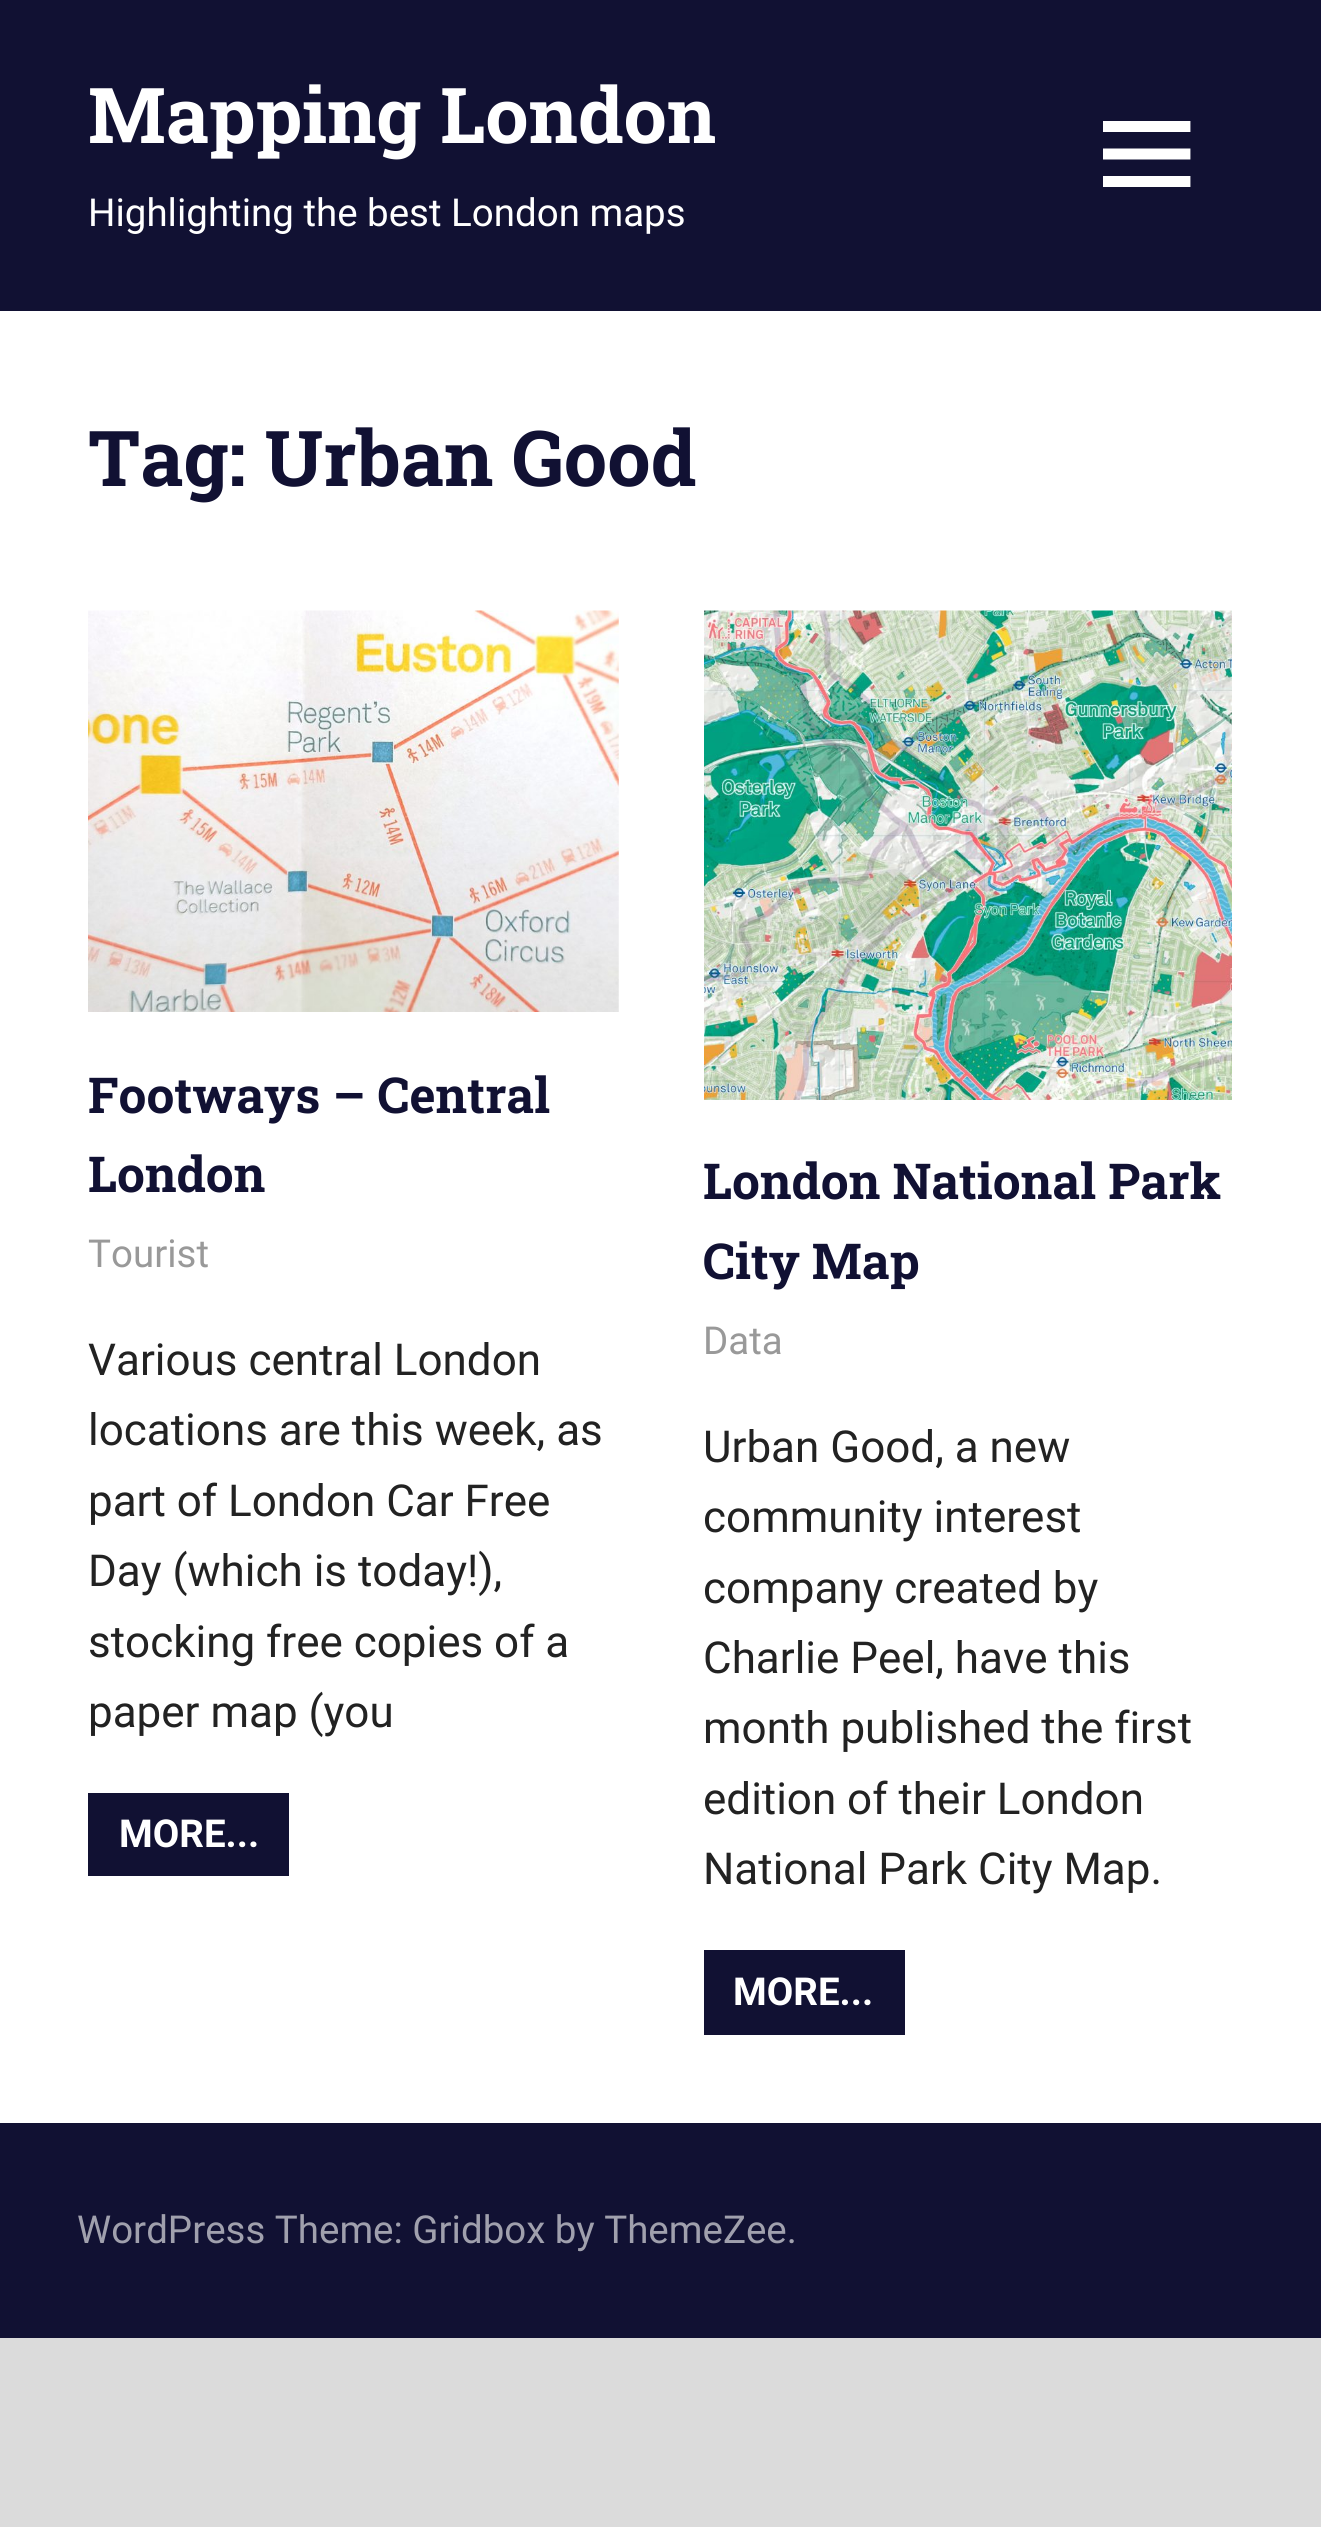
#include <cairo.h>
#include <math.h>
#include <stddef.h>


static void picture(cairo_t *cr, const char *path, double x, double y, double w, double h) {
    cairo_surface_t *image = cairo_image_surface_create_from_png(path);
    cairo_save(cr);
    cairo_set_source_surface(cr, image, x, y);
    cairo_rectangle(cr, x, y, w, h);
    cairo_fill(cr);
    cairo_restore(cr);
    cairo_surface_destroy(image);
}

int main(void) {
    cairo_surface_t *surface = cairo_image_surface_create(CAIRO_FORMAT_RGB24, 1321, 2527);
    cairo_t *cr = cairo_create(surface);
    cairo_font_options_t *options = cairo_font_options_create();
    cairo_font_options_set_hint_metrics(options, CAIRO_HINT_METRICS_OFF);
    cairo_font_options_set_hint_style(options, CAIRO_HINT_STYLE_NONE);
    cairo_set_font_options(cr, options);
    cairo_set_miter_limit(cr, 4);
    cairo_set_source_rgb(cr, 0.859, 0.859, 0.859);
    cairo_paint(cr);
    cairo_set_source_rgb(cr, 0.067, 0.067, 0.2);
    cairo_rectangle(cr, 0, 0, 1321, 311);
    cairo_fill(cr);
    cairo_select_font_face(cr, "Roboto Slab", CAIRO_FONT_SLANT_NORMAL, CAIRO_FONT_WEIGHT_BOLD);
    cairo_set_font_size(cr, 77);
    cairo_set_source_rgb(cr, 1, 1, 1);
    cairo_move_to(cr, 88, 143);
    cairo_show_text(cr, "Mapping London");
    cairo_select_font_face(cr, "Roboto", CAIRO_FONT_SLANT_NORMAL, CAIRO_FONT_WEIGHT_NORMAL);
    cairo_set_font_size(cr, 38.5);
    cairo_move_to(cr, 88, 226);
    cairo_show_text(cr, "Highlighting the best London maps");
    picture(cr, "img1.png", 1103, 121, 88, 66);
    cairo_rectangle(cr, 0, 311, 1321, 1812);
    cairo_fill(cr);
    cairo_select_font_face(cr, "Roboto Slab", CAIRO_FONT_SLANT_NORMAL, CAIRO_FONT_WEIGHT_BOLD);
    cairo_set_font_size(cr, 77);
    cairo_set_source_rgb(cr, 0.067, 0.067, 0.2);
    cairo_move_to(cr, 88, 486);
    cairo_show_text(cr, "Tag: Urban Good");
    picture(cr, "img2.png", 88, 610, 531, 402);
    cairo_set_font_size(cr, 49.5);
    cairo_move_to(cr, 88, 1113);
    cairo_show_text(cr, "Footways – Central");
    cairo_move_to(cr, 88, 1192);
    cairo_show_text(cr, "London");
    cairo_select_font_face(cr, "Roboto", CAIRO_FONT_SLANT_NORMAL, CAIRO_FONT_WEIGHT_NORMAL);
    cairo_set_font_size(cr, 38.5);
    cairo_set_source_rgb(cr, 0.6, 0.6, 0.6);
    cairo_move_to(cr, 88, 1267);
    cairo_show_text(cr, "Tourist");
    cairo_set_font_size(cr, 44);
    cairo_set_source_rgb(cr, 0.133, 0.133, 0.133);
    cairo_move_to(cr, 88, 1375);
    cairo_show_text(cr, "Various central London");
    cairo_move_to(cr, 88, 1445);
    cairo_show_text(cr, "locations are this week, as");
    cairo_move_to(cr, 88, 1516);
    cairo_show_text(cr, "part of London Car Free");
    cairo_move_to(cr, 88, 1586);
    cairo_show_text(cr, "Day (which is today!),");
    cairo_move_to(cr, 88, 1657);
    cairo_show_text(cr, "stocking free copies of a");
    cairo_move_to(cr, 88, 1727);
    cairo_show_text(cr, "paper map (you");
    cairo_set_source_rgb(cr, 0.067, 0.067, 0.2);
    cairo_rectangle(cr, 88, 1793, 201, 83);
    cairo_fill(cr);
    cairo_select_font_face(cr, "Roboto", CAIRO_FONT_SLANT_NORMAL, CAIRO_FONT_WEIGHT_BOLD);
    cairo_set_font_size(cr, 38.5);
    cairo_set_source_rgb(cr, 1, 1, 1);
    cairo_move_to(cr, 119, 1847);
    cairo_show_text(cr, "MORE...");
    picture(cr, "img3.png", 704, 610, 528, 490);
    cairo_select_font_face(cr, "Roboto Slab", CAIRO_FONT_SLANT_NORMAL, CAIRO_FONT_WEIGHT_BOLD);
    cairo_set_font_size(cr, 49.5);
    cairo_set_source_rgb(cr, 0.067, 0.067, 0.2);
    cairo_move_to(cr, 703, 1199);
    cairo_show_text(cr, "London National Park");
    cairo_move_to(cr, 703, 1279);
    cairo_show_text(cr, "City Map");
    cairo_select_font_face(cr, "Roboto", CAIRO_FONT_SLANT_NORMAL, CAIRO_FONT_WEIGHT_NORMAL);
    cairo_set_font_size(cr, 38.5);
    cairo_set_source_rgb(cr, 0.6, 0.6, 0.6);
    cairo_move_to(cr, 703, 1354);
    cairo_show_text(cr, "Data");
    cairo_set_font_size(cr, 44);
    cairo_set_source_rgb(cr, 0.133, 0.133, 0.133);
    cairo_move_to(cr, 703, 1462);
    cairo_show_text(cr, "Urban Good, a new");
    cairo_move_to(cr, 703, 1532);
    cairo_show_text(cr, "community interest");
    cairo_move_to(cr, 703, 1603);
    cairo_show_text(cr, "company created by");
    cairo_move_to(cr, 703, 1673);
    cairo_show_text(cr, "Charlie Peel, have this");
    cairo_move_to(cr, 703, 1743);
    cairo_show_text(cr, "month published the first");
    cairo_move_to(cr, 703, 1814);
    cairo_show_text(cr, "edition of their London");
    cairo_move_to(cr, 703, 1884);
    cairo_show_text(cr, "National Park City Map.");
    cairo_set_source_rgb(cr, 0.067, 0.067, 0.2);
    cairo_rectangle(cr, 704, 1950, 201, 85);
    cairo_fill(cr);
    cairo_select_font_face(cr, "Roboto", CAIRO_FONT_SLANT_NORMAL, CAIRO_FONT_WEIGHT_BOLD);
    cairo_set_font_size(cr, 38.5);
    cairo_set_source_rgb(cr, 1, 1, 1);
    cairo_move_to(cr, 733, 2005);
    cairo_show_text(cr, "MORE...");
    cairo_set_source_rgb(cr, 0.067, 0.067, 0.2);
    cairo_rectangle(cr, 0, 2123, 1321, 215);
    cairo_fill(cr);
    cairo_select_font_face(cr, "Roboto", CAIRO_FONT_SLANT_NORMAL, CAIRO_FONT_WEIGHT_NORMAL);
    cairo_set_source_rgb(cr, 0.627, 0.627, 0.678);
    cairo_move_to(cr, 77, 2243);
    cairo_show_text(cr, "WordPress Theme: Gridbox by ThemeZee.");
    cairo_surface_write_to_png(surface, "page.png");
    cairo_font_options_destroy(options);
    cairo_destroy(cr);
    cairo_surface_destroy(surface);
    return 0;
}
